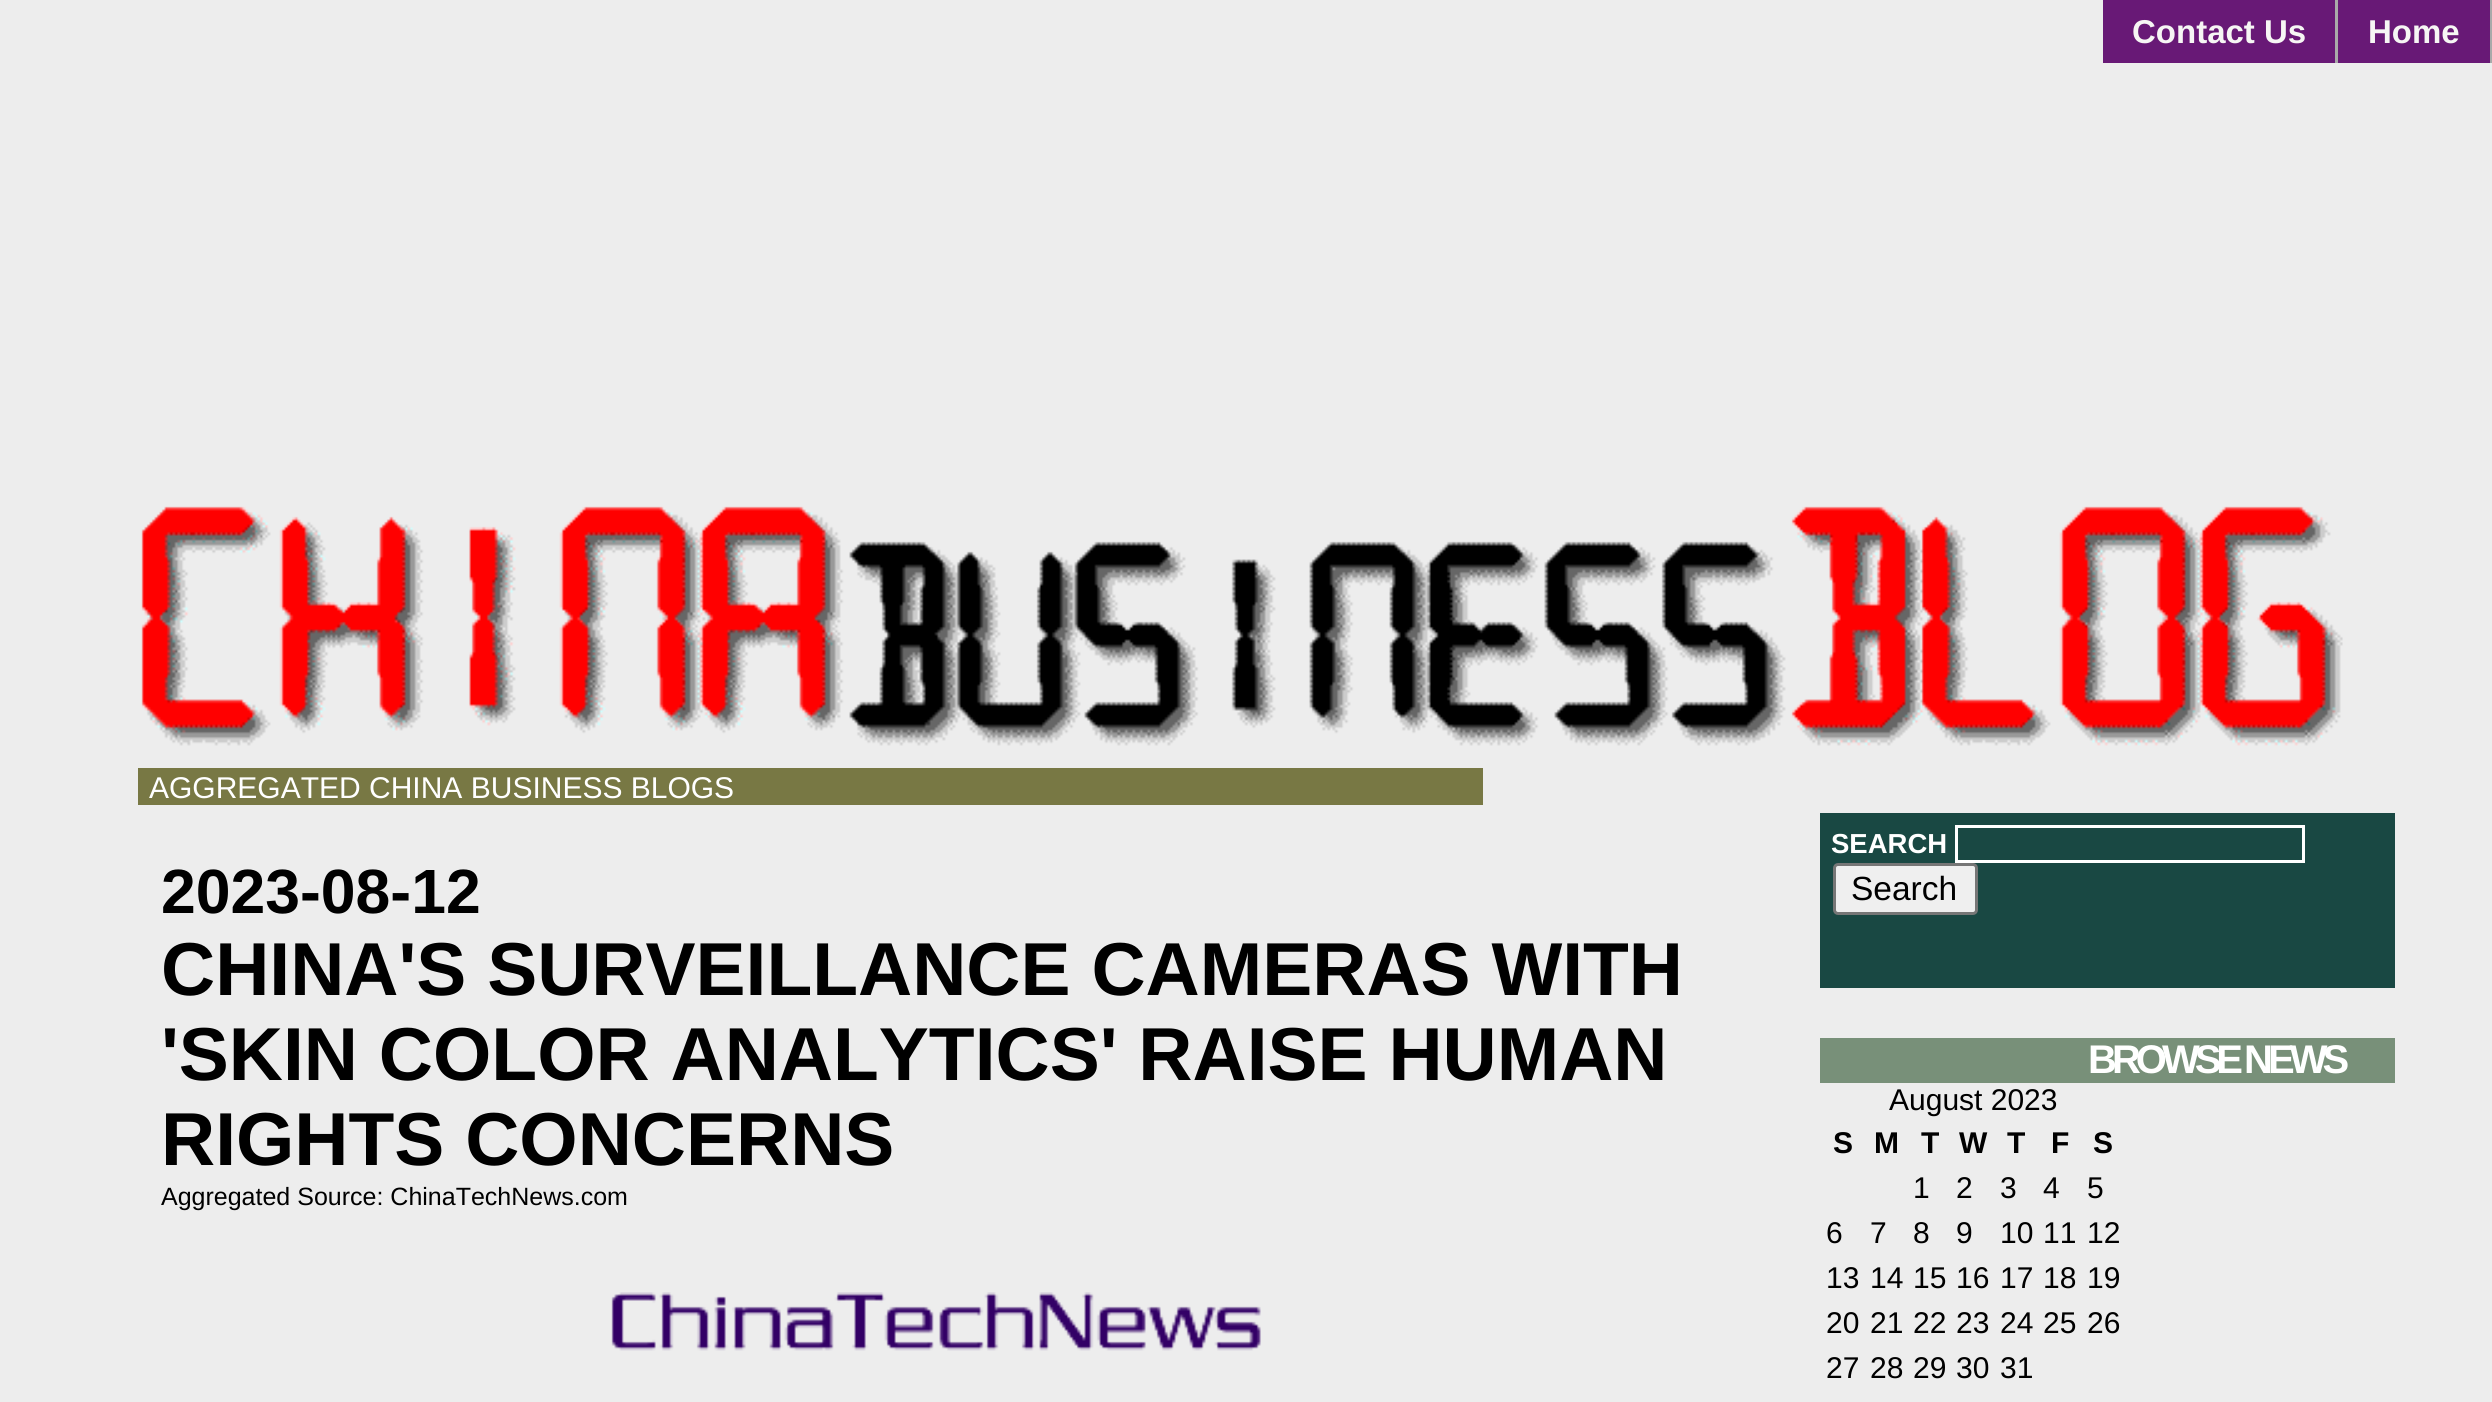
#include <cairo.h>
#include <math.h>
#include <stddef.h>


static void spaced_text(cairo_t *cr, double x, double y, const char *s, double letter, double word) {
    cairo_move_to(cr, x, y);
    while (*s) {
        char ch[5] = {0};
        int n = 0;
        do ch[n++] = *s++; while ((*s & 0xC0) == 0x80);
        cairo_show_text(cr, ch);
        cairo_rel_move_to(cr, letter + word * (*ch == ' '), 0);
    }
}

static void round_rect(cairo_t *cr, double x, double y, double w, double h, double r) {
    cairo_new_sub_path(cr);
    cairo_arc(cr, x + w - r, y + h - r, r, 0, M_PI / 2);
    cairo_arc(cr, x + r, y + h - r, r, M_PI / 2, M_PI);
    cairo_arc(cr, x + r, y + r, r, M_PI, 1.5 * M_PI);
    cairo_arc(cr, x + w - r, y + r, r, 1.5 * M_PI, 2 * M_PI);
    cairo_close_path(cr);
}

static void picture(cairo_t *cr, const char *path, double x, double y, double w, double h) {
    cairo_surface_t *image = cairo_image_surface_create_from_png(path);
    cairo_save(cr);
    cairo_set_source_surface(cr, image, x, y);
    cairo_rectangle(cr, x, y, w, h);
    cairo_fill(cr);
    cairo_restore(cr);
    cairo_surface_destroy(image);
}

int main(void) {
    cairo_surface_t *surface = cairo_image_surface_create(CAIRO_FORMAT_RGB24, 2492, 1402);
    cairo_t *cr = cairo_create(surface);
    cairo_font_options_t *options = cairo_font_options_create();
    cairo_font_options_set_hint_metrics(options, CAIRO_HINT_METRICS_OFF);
    cairo_font_options_set_hint_style(options, CAIRO_HINT_STYLE_NONE);
    cairo_set_font_options(cr, options);
    cairo_set_miter_limit(cr, 4);
    cairo_set_source_rgb(cr, 0.929, 0.929, 0.929);
    cairo_paint(cr);
    cairo_set_source_rgb(cr, 0.663, 0.663, 0.663);
    cairo_rectangle(cr, 2335, 0, 3, 63);
    cairo_fill(cr);
    cairo_set_source_rgb(cr, 0.408, 0.098, 0.463);
    cairo_rectangle(cr, 2103, 0, 232, 63);
    cairo_fill(cr);
    cairo_select_font_face(cr, "Liberation Sans", CAIRO_FONT_SLANT_NORMAL, CAIRO_FONT_WEIGHT_BOLD);
    cairo_set_font_size(cr, 33);
    cairo_set_source_rgb(cr, 0.961, 0.961, 0.957);
    cairo_move_to(cr, 2132, 43);
    cairo_show_text(cr, "Contact Us");
    cairo_set_source_rgb(cr, 0.663, 0.663, 0.663);
    cairo_rectangle(cr, 2490, 0, 2, 63);
    cairo_fill(cr);
    cairo_set_source_rgb(cr, 0.408, 0.098, 0.463);
    cairo_rectangle(cr, 2338, 0, 152, 63);
    cairo_fill(cr);
    cairo_set_source_rgb(cr, 0.961, 0.961, 0.957);
    cairo_move_to(cr, 2368, 43);
    cairo_show_text(cr, "Home");
    picture(cr, "img1.png", 141, 506, 2202, 240);
    cairo_set_source_rgb(cr, 0.471, 0.471, 0.267);
    cairo_rectangle(cr, 138, 768, 1345, 37);
    cairo_fill(cr);
    cairo_select_font_face(cr, "Liberation Sans", CAIRO_FONT_SLANT_NORMAL, CAIRO_FONT_WEIGHT_NORMAL);
    cairo_set_font_size(cr, 30);
    cairo_set_source_rgb(cr, 1, 1, 1);
    cairo_move_to(cr, 149, 798);
    cairo_show_text(cr, "AGGREGATED CHINA BUSINESS BLOGS");
    cairo_select_font_face(cr, "Liberation Sans", CAIRO_FONT_SLANT_NORMAL, CAIRO_FONT_WEIGHT_BOLD);
    cairo_set_font_size(cr, 62.5);
    cairo_set_source_rgb(cr, 0, 0, 0);
    cairo_move_to(cr, 161, 913);
    cairo_show_text(cr, "2023-08-12");
    cairo_set_font_size(cr, 75);
    cairo_move_to(cr, 161, 995);
    cairo_show_text(cr, "CHINA'S SURVEILLANCE CAMERAS WITH");
    cairo_move_to(cr, 161, 1080);
    cairo_show_text(cr, "'SKIN COLOR ANALYTICS' RAISE HUMAN");
    cairo_move_to(cr, 161, 1165);
    cairo_show_text(cr, "RIGHTS CONCERNS");
    cairo_select_font_face(cr, "Liberation Sans", CAIRO_FONT_SLANT_NORMAL, CAIRO_FONT_WEIGHT_NORMAL);
    cairo_set_font_size(cr, 25);
    cairo_move_to(cr, 161, 1205);
    cairo_show_text(cr, "Aggregated Source: ChinaTechNews.com");
    picture(cr, "img2.png", 611, 1292, 650, 59);
    cairo_set_source_rgb(cr, 0.098, 0.282, 0.263);
    cairo_rectangle(cr, 1820, 813, 575, 175);
    cairo_fill(cr);
    cairo_select_font_face(cr, "Liberation Sans", CAIRO_FONT_SLANT_NORMAL, CAIRO_FONT_WEIGHT_BOLD);
    cairo_set_font_size(cr, 27.5);
    cairo_set_source_rgb(cr, 1, 1, 1);
    cairo_move_to(cr, 1831, 853);
    cairo_show_text(cr, "SEARCH");
    cairo_rectangle(cr, 1956.5, 826.5, 347, 35);
    cairo_set_line_width(cr, 3);
    cairo_stroke(cr);
    cairo_set_source_rgb(cr, 0.937, 0.937, 0.937);
    round_rect(cr, 1834.5, 864.5, 142, 49, 3.5);
    cairo_fill_preserve(cr);
    cairo_set_source_rgb(cr, 0.463, 0.463, 0.463);
    cairo_stroke(cr);
    cairo_select_font_face(cr, "Liberation Sans", CAIRO_FONT_SLANT_NORMAL, CAIRO_FONT_WEIGHT_NORMAL);
    cairo_set_font_size(cr, 33.5);
    cairo_set_source_rgb(cr, 0, 0, 0);
    cairo_move_to(cr, 1851, 900);
    cairo_show_text(cr, "Search");
    cairo_set_source_rgb(cr, 0.471, 0.565, 0.475);
    cairo_rectangle(cr, 1820, 1038, 575, 45);
    cairo_fill(cr);
    cairo_select_font_face(cr, "Liberation Sans", CAIRO_FONT_SLANT_NORMAL, CAIRO_FONT_WEIGHT_BOLD);
    cairo_set_font_size(cr, 40);
    cairo_set_source_rgb(cr, 1, 1, 1);
    spaced_text(cr, 2088, 1073, "BROWSE NEWS", -5, 0);
    cairo_select_font_face(cr, "Liberation Sans", CAIRO_FONT_SLANT_NORMAL, CAIRO_FONT_WEIGHT_NORMAL);
    cairo_set_font_size(cr, 30);
    cairo_set_source_rgb(cr, 0, 0, 0);
    cairo_move_to(cr, 1889, 1110);
    cairo_show_text(cr, "August 2023");
    cairo_select_font_face(cr, "Liberation Sans", CAIRO_FONT_SLANT_NORMAL, CAIRO_FONT_WEIGHT_BOLD);
    cairo_move_to(cr, 1833, 1153);
    cairo_show_text(cr, "S");
    cairo_move_to(cr, 1874, 1153);
    cairo_show_text(cr, "M");
    cairo_move_to(cr, 1921, 1153);
    cairo_show_text(cr, "T");
    cairo_move_to(cr, 1959, 1153);
    cairo_show_text(cr, "W");
    cairo_move_to(cr, 2007, 1153);
    cairo_show_text(cr, "T");
    cairo_move_to(cr, 2051, 1153);
    cairo_show_text(cr, "F");
    cairo_move_to(cr, 2093, 1153);
    cairo_show_text(cr, "S");
    cairo_select_font_face(cr, "Liberation Sans", CAIRO_FONT_SLANT_NORMAL, CAIRO_FONT_WEIGHT_NORMAL);
    cairo_move_to(cr, 1913, 1198);
    cairo_show_text(cr, "1");
    cairo_move_to(cr, 1956, 1198);
    cairo_show_text(cr, "2");
    cairo_move_to(cr, 2000, 1198);
    cairo_show_text(cr, "3");
    cairo_move_to(cr, 2043, 1198);
    cairo_show_text(cr, "4");
    cairo_move_to(cr, 2087, 1198);
    cairo_show_text(cr, "5");
    cairo_move_to(cr, 1826, 1243);
    cairo_show_text(cr, "6");
    cairo_move_to(cr, 1870, 1243);
    cairo_show_text(cr, "7");
    cairo_move_to(cr, 1913, 1243);
    cairo_show_text(cr, "8");
    cairo_move_to(cr, 1956, 1243);
    cairo_show_text(cr, "9");
    cairo_move_to(cr, 2000, 1243);
    cairo_show_text(cr, "10");
    cairo_move_to(cr, 2043, 1243);
    cairo_show_text(cr, "11");
    cairo_move_to(cr, 2087, 1243);
    cairo_show_text(cr, "12");
    cairo_move_to(cr, 1826, 1288);
    cairo_show_text(cr, "13");
    cairo_move_to(cr, 1870, 1288);
    cairo_show_text(cr, "14");
    cairo_move_to(cr, 1913, 1288);
    cairo_show_text(cr, "15");
    cairo_move_to(cr, 1956, 1288);
    cairo_show_text(cr, "16");
    cairo_move_to(cr, 2000, 1288);
    cairo_show_text(cr, "17");
    cairo_move_to(cr, 2043, 1288);
    cairo_show_text(cr, "18");
    cairo_move_to(cr, 2087, 1288);
    cairo_show_text(cr, "19");
    cairo_move_to(cr, 1826, 1333);
    cairo_show_text(cr, "20");
    cairo_move_to(cr, 1870, 1333);
    cairo_show_text(cr, "21");
    cairo_move_to(cr, 1913, 1333);
    cairo_show_text(cr, "22");
    cairo_move_to(cr, 1956, 1333);
    cairo_show_text(cr, "23");
    cairo_move_to(cr, 2000, 1333);
    cairo_show_text(cr, "24");
    cairo_move_to(cr, 2043, 1333);
    cairo_show_text(cr, "25");
    cairo_move_to(cr, 2087, 1333);
    cairo_show_text(cr, "26");
    cairo_move_to(cr, 1826, 1378);
    cairo_show_text(cr, "27");
    cairo_move_to(cr, 1870, 1378);
    cairo_show_text(cr, "28");
    cairo_move_to(cr, 1913, 1378);
    cairo_show_text(cr, "29");
    cairo_move_to(cr, 1956, 1378);
    cairo_show_text(cr, "30");
    cairo_move_to(cr, 2000, 1378);
    cairo_show_text(cr, "31");
    cairo_surface_write_to_png(surface, "page.png");
    cairo_font_options_destroy(options);
    cairo_destroy(cr);
    cairo_surface_destroy(surface);
    return 0;
}
